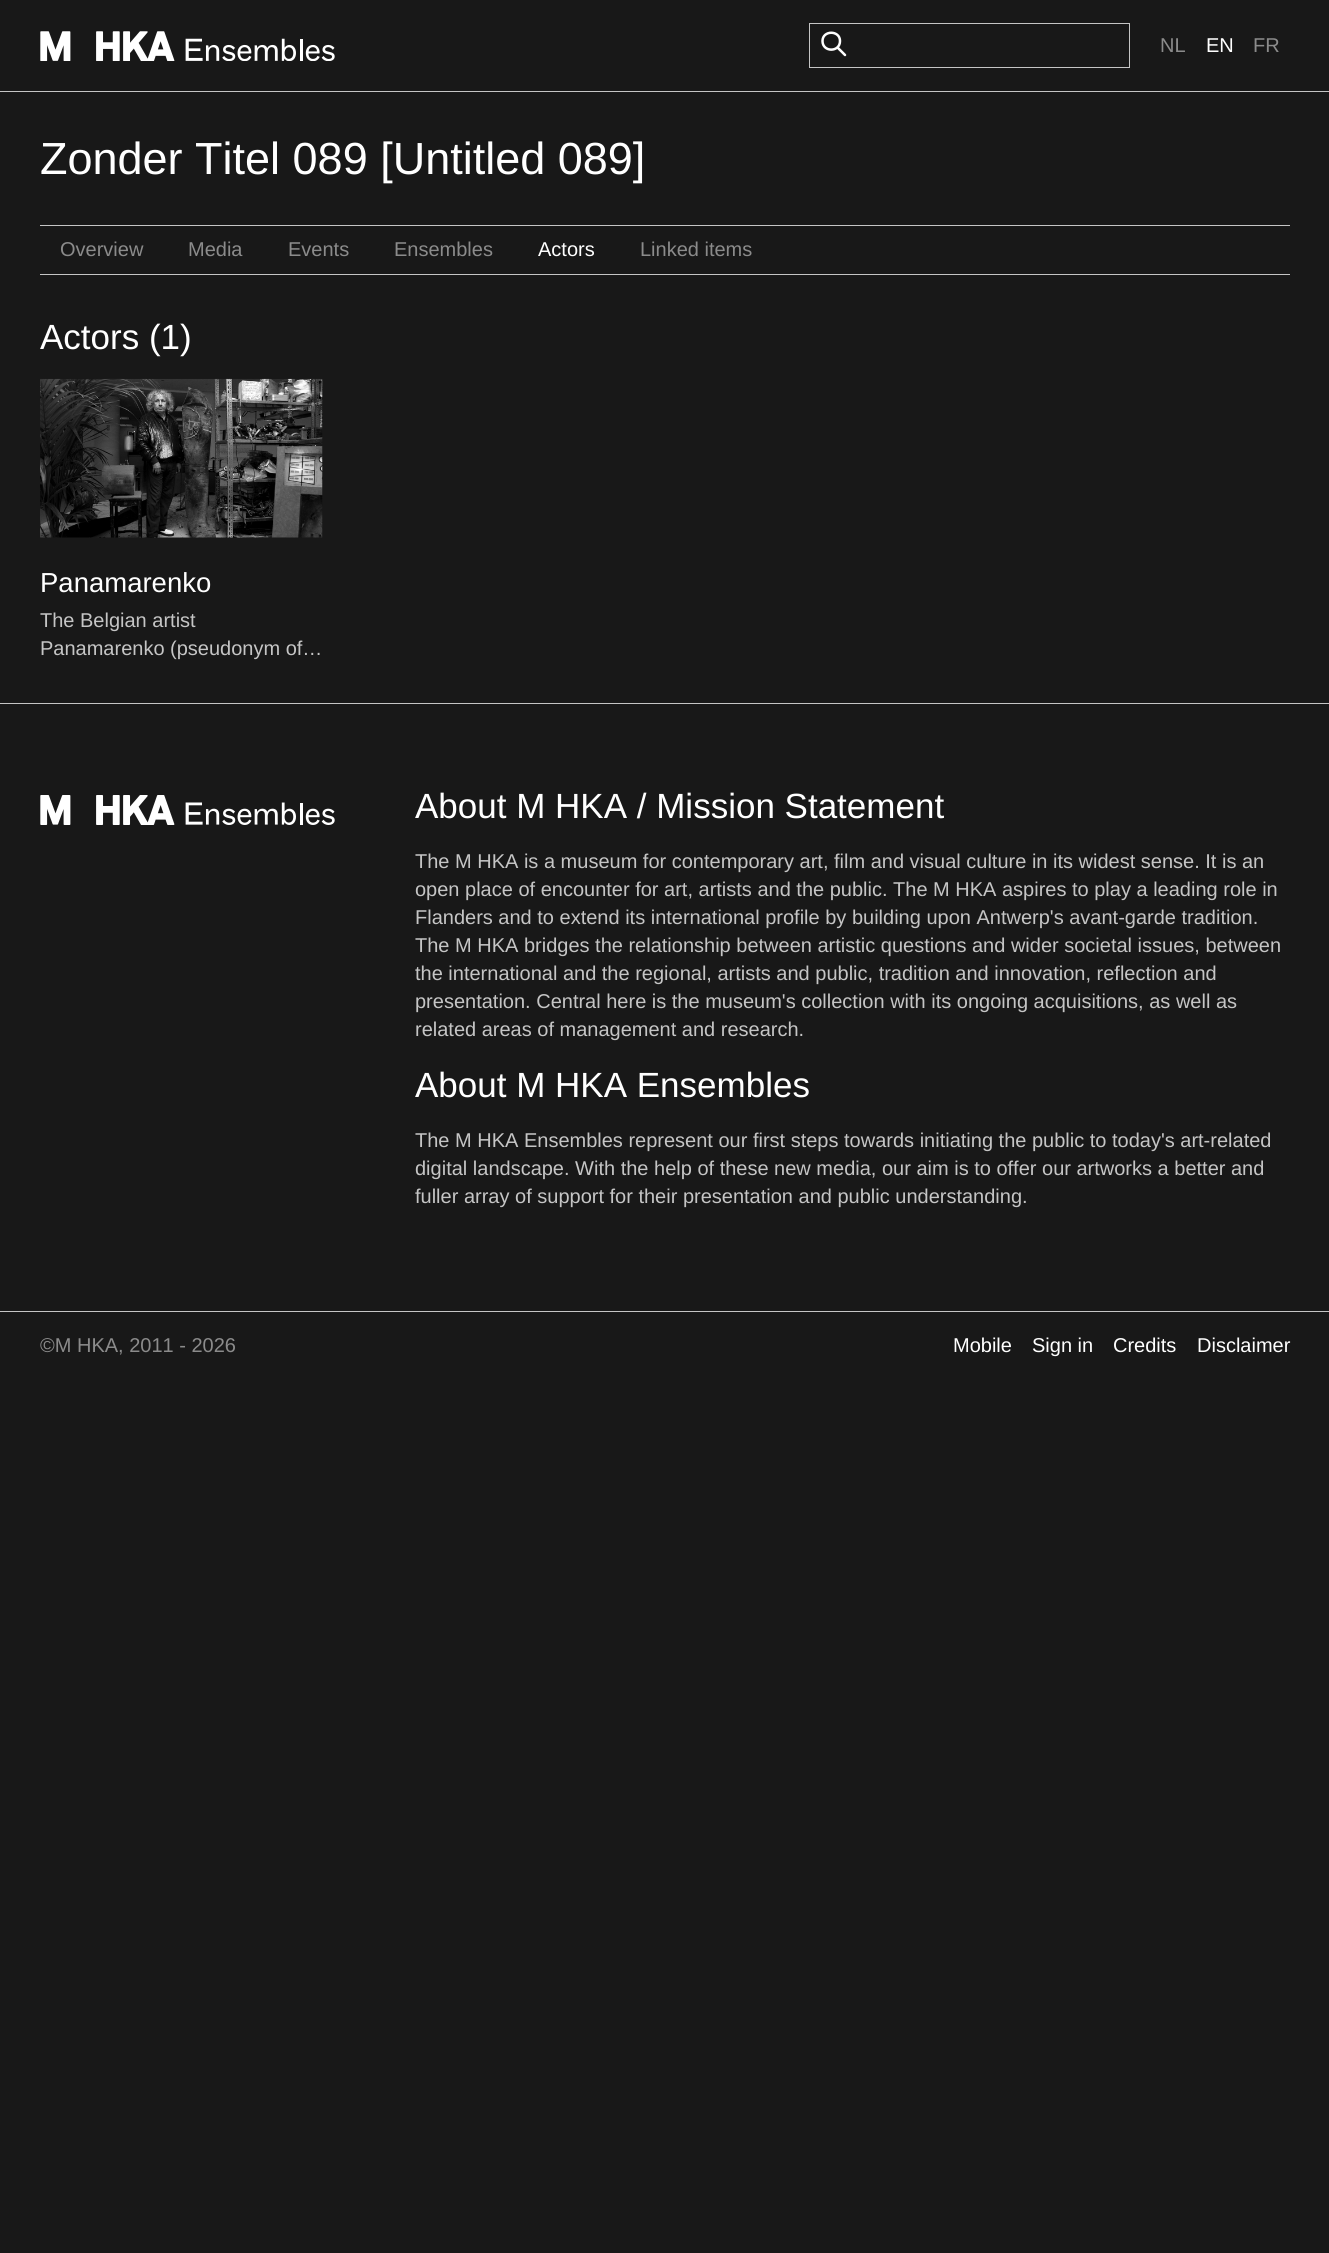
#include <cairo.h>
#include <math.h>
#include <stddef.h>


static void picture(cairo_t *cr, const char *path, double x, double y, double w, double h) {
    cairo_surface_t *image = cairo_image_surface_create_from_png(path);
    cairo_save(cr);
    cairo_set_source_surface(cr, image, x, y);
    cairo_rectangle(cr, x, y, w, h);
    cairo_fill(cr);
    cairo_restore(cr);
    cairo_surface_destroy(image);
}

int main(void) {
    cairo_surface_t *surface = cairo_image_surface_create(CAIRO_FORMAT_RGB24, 1329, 2253);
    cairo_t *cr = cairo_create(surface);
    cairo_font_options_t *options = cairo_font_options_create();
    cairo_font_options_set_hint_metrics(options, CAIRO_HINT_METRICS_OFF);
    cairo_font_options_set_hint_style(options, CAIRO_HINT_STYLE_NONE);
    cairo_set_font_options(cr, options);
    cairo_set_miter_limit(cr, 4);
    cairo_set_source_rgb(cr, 0.094, 0.094, 0.094);
    cairo_paint(cr);
    cairo_set_source_rgb(cr, 0.773, 0.773, 0.773);
    cairo_rectangle(cr, 0, 91, 1329, 1);
    cairo_fill(cr);
    picture(cr, "img1.png", 40, 31, 295, 30);
    cairo_rectangle(cr, 809.5, 23.5, 320, 44);
    cairo_set_line_width(cr, 1);
    cairo_stroke(cr);
    cairo_new_path(cr);
    cairo_move_to(cr, 840, 41);
    cairo_curve_to(cr, 840, 52.5, 822.5, 52.5, 822.5, 41);
    cairo_curve_to(cr, 822.5, 30, 840, 30, 840, 41);
    cairo_close_path(cr);
    cairo_move_to(cr, 845, 55);
    cairo_line_to(cr, 837.5, 47.5);
    cairo_set_source_rgb(cr, 1, 1, 1);
    cairo_set_line_width(cr, 2.5);
    cairo_set_line_cap(cr, CAIRO_LINE_CAP_ROUND);
    cairo_set_line_join(cr, CAIRO_LINE_JOIN_ROUND);
    cairo_stroke(cr);
    cairo_select_font_face(cr, "Liberation Sans", CAIRO_FONT_SLANT_NORMAL, CAIRO_FONT_WEIGHT_NORMAL);
    cairo_set_font_size(cr, 20);
    cairo_set_source_rgb(cr, 0.545, 0.545, 0.545);
    cairo_move_to(cr, 1160, 52);
    cairo_show_text(cr, "NL");
    cairo_set_source_rgb(cr, 1, 1, 1);
    cairo_move_to(cr, 1206, 52);
    cairo_show_text(cr, "EN");
    cairo_set_source_rgb(cr, 0.545, 0.545, 0.545);
    cairo_move_to(cr, 1253, 52);
    cairo_show_text(cr, "FR");
    cairo_set_font_size(cr, 45);
    cairo_set_source_rgb(cr, 1, 1, 1);
    cairo_move_to(cr, 40, 174);
    cairo_show_text(cr, "Zonder Titel 089 [Untitled 089]");
    cairo_set_source_rgb(cr, 0.773, 0.773, 0.773);
    cairo_rectangle(cr, 40, 225, 1250, 1);
    cairo_fill(cr);
    cairo_rectangle(cr, 40, 274, 1250, 1);
    cairo_fill(cr);
    cairo_set_font_size(cr, 20);
    cairo_set_source_rgb(cr, 0.545, 0.545, 0.545);
    cairo_move_to(cr, 60, 256);
    cairo_show_text(cr, "Overview");
    cairo_move_to(cr, 188, 256);
    cairo_show_text(cr, "Media");
    cairo_move_to(cr, 288, 256);
    cairo_show_text(cr, "Events");
    cairo_move_to(cr, 394, 256);
    cairo_show_text(cr, "Ensembles");
    cairo_set_source_rgb(cr, 1, 1, 1);
    cairo_move_to(cr, 538, 256);
    cairo_show_text(cr, "Actors");
    cairo_set_source_rgb(cr, 0.545, 0.545, 0.545);
    cairo_move_to(cr, 640, 256);
    cairo_show_text(cr, "Linked items");
    cairo_set_font_size(cr, 35);
    cairo_set_source_rgb(cr, 1, 1, 1);
    cairo_move_to(cr, 40, 349);
    cairo_show_text(cr, "Actors (1)");
    picture(cr, "img2.png", 40, 378, 283, 160);
    cairo_set_font_size(cr, 27.5);
    cairo_move_to(cr, 40, 592);
    cairo_show_text(cr, "Panamarenko");
    cairo_set_font_size(cr, 20);
    cairo_set_source_rgb(cr, 0.773, 0.773, 0.773);
    cairo_move_to(cr, 40, 627);
    cairo_show_text(cr, "The Belgian artist");
    cairo_move_to(cr, 40, 655);
    cairo_show_text(cr, "Panamarenko (pseudonym of…");
    cairo_rectangle(cr, 0, 703, 1329, 1);
    cairo_fill(cr);
    picture(cr, "img3.png", 40, 795, 295, 30);
    cairo_set_font_size(cr, 35);
    cairo_set_source_rgb(cr, 1, 1, 1);
    cairo_move_to(cr, 415, 818);
    cairo_show_text(cr, "About M HKA / Mission Statement");
    cairo_set_font_size(cr, 20);
    cairo_set_source_rgb(cr, 0.773, 0.773, 0.773);
    cairo_move_to(cr, 415, 868);
    cairo_show_text(cr, "The M HKA is a museum for contemporary art, film and visual culture in its widest sense. It is an");
    cairo_move_to(cr, 415, 896);
    cairo_show_text(cr, "open place of encounter for art, artists and the public. The M HKA aspires to play a leading role in");
    cairo_move_to(cr, 415, 924);
    cairo_show_text(cr, "Flanders and to extend its international profile by building upon Antwerp's avant-garde tradition.");
    cairo_move_to(cr, 415, 952);
    cairo_show_text(cr, "The M HKA bridges the relationship between artistic questions and wider societal issues, between");
    cairo_move_to(cr, 415, 980);
    cairo_show_text(cr, "the international and the regional, artists and public, tradition and innovation, reflection and");
    cairo_move_to(cr, 415, 1008);
    cairo_show_text(cr, "presentation. Central here is the museum's collection with its ongoing acquisitions, as well as");
    cairo_move_to(cr, 415, 1036);
    cairo_show_text(cr, "related areas of management and research.");
    cairo_set_font_size(cr, 35);
    cairo_set_source_rgb(cr, 1, 1, 1);
    cairo_move_to(cr, 415, 1097);
    cairo_show_text(cr, "About M HKA Ensembles");
    cairo_set_font_size(cr, 20);
    cairo_set_source_rgb(cr, 0.773, 0.773, 0.773);
    cairo_move_to(cr, 415, 1147);
    cairo_show_text(cr, "The M HKA Ensembles represent our first steps towards initiating the public to today's art-related");
    cairo_move_to(cr, 415, 1175);
    cairo_show_text(cr, "digital landscape. With the help of these new media, our aim is to offer our artworks a better and");
    cairo_move_to(cr, 415, 1203);
    cairo_show_text(cr, "fuller array of support for their presentation and public understanding.");
    cairo_rectangle(cr, 0, 1311, 1329, 1);
    cairo_fill(cr);
    cairo_set_source_rgb(cr, 0.545, 0.545, 0.545);
    cairo_move_to(cr, 40, 1352);
    cairo_show_text(cr, "©M HKA, 2011 - 2026");
    cairo_set_source_rgb(cr, 1, 1, 1);
    cairo_move_to(cr, 953, 1352);
    cairo_show_text(cr, "Mobile");
    cairo_move_to(cr, 1032, 1352);
    cairo_show_text(cr, "Sign in");
    cairo_move_to(cr, 1113, 1352);
    cairo_show_text(cr, "Credits");
    cairo_move_to(cr, 1197, 1352);
    cairo_show_text(cr, "Disclaimer");
    cairo_surface_write_to_png(surface, "page.png");
    cairo_font_options_destroy(options);
    cairo_destroy(cr);
    cairo_surface_destroy(surface);
    return 0;
}
